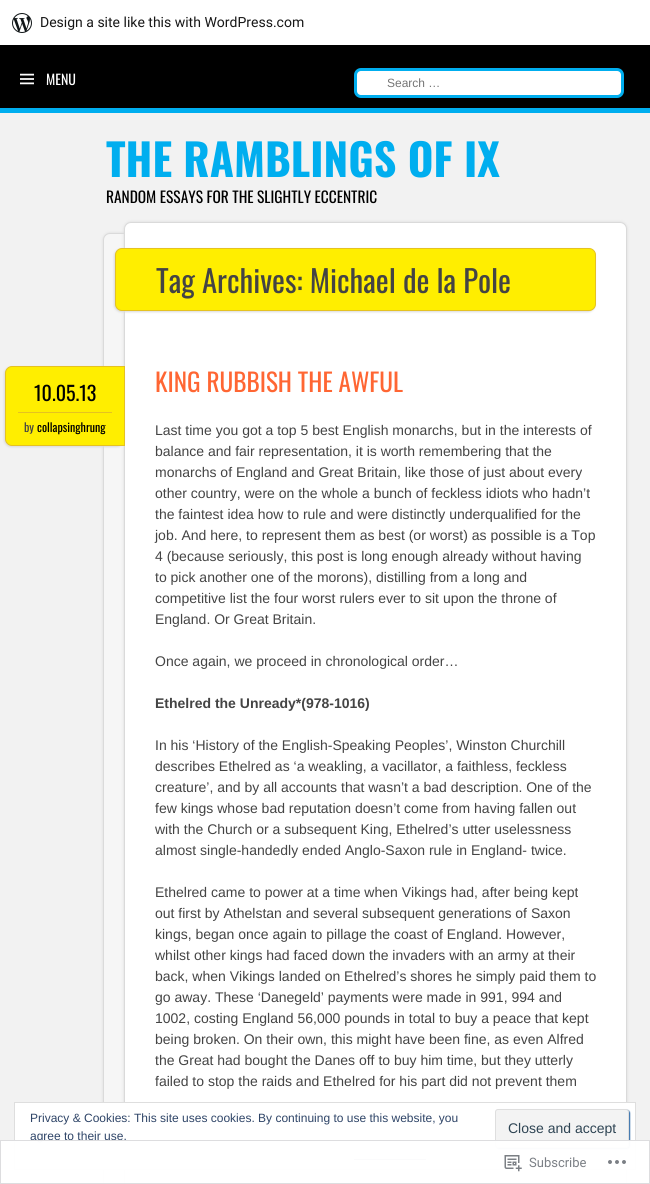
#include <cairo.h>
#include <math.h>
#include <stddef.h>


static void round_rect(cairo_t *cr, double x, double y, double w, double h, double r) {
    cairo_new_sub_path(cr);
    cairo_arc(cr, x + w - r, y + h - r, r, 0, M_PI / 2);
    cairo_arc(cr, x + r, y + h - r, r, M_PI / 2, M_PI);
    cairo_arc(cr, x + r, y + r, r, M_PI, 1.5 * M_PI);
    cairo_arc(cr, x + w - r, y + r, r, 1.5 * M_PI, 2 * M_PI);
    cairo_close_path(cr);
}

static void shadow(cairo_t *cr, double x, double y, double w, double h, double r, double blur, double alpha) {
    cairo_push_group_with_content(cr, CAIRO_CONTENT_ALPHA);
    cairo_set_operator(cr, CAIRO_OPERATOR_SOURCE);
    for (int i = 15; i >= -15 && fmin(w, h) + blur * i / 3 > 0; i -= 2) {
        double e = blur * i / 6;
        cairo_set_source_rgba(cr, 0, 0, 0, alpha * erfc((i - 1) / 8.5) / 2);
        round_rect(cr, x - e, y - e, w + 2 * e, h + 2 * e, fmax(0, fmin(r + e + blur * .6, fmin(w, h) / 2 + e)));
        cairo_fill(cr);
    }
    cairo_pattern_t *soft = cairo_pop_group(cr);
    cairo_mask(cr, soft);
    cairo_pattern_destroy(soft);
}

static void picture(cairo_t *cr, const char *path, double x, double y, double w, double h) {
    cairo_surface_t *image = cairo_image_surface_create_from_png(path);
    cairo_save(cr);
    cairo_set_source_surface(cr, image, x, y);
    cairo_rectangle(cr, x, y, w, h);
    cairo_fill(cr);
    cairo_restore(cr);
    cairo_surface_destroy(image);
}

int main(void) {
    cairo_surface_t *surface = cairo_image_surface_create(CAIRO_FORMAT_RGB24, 650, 1184);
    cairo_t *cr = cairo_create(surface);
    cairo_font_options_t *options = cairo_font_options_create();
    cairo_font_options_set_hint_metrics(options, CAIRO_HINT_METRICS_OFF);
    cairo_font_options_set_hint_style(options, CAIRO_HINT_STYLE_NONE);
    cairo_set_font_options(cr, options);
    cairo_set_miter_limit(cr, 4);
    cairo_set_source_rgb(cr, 0.949, 0.949, 0.949);
    cairo_paint(cr);
    cairo_set_source_rgb(cr, 1, 1, 1);
    cairo_rectangle(cr, 0, 0, 650, 45);
    cairo_fill(cr);
    picture(cr, "img1.png", 12, 13, 20, 20);
    cairo_select_font_face(cr, "Roboto", CAIRO_FONT_SLANT_NORMAL, CAIRO_FONT_WEIGHT_NORMAL);
    cairo_set_font_size(cr, 14);
    cairo_set_source_rgb(cr, 0.09, 0.09, 0.09);
    cairo_move_to(cr, 40, 27);
    cairo_show_text(cr, "Design a site like this with WordPress.com");
    cairo_set_source_rgb(cr, 0, 0, 0);
    cairo_rectangle(cr, 0, 45, 650, 63);
    cairo_fill(cr);
    cairo_set_source_rgb(cr, 0, 0.682, 0.937);
    cairo_rectangle(cr, 0, 108, 650, 5);
    cairo_fill(cr);
    picture(cr, "img2.png", 20, 73, 14, 12);
    cairo_select_font_face(cr, "Oswald", CAIRO_FONT_SLANT_NORMAL, CAIRO_FONT_WEIGHT_NORMAL);
    cairo_set_source_rgb(cr, 1, 1, 1);
    cairo_move_to(cr, 46, 85);
    cairo_show_text(cr, "MENU");
    round_rect(cr, 355.5, 69.5, 267, 27, 5.5);
    cairo_fill_preserve(cr);
    cairo_set_source_rgb(cr, 0, 0.682, 0.937);
    cairo_set_line_width(cr, 3);
    cairo_stroke(cr);
    cairo_select_font_face(cr, "Liberation Sans", CAIRO_FONT_SLANT_NORMAL, CAIRO_FONT_WEIGHT_NORMAL);
    cairo_set_font_size(cr, 12);
    cairo_set_source_rgb(cr, 0.459, 0.459, 0.459);
    cairo_move_to(cr, 387, 87);
    cairo_show_text(cr, "Search …");
    cairo_select_font_face(cr, "Oswald", CAIRO_FONT_SLANT_NORMAL, CAIRO_FONT_WEIGHT_BOLD);
    cairo_set_font_size(cr, 44);
    cairo_set_source_rgb(cr, 0, 0.682, 0.937);
    cairo_move_to(cr, 106, 177);
    cairo_show_text(cr, "THE RAMBLINGS OF IX");
    cairo_select_font_face(cr, "Oswald", CAIRO_FONT_SLANT_NORMAL, CAIRO_FONT_WEIGHT_NORMAL);
    cairo_set_font_size(cr, 15.4);
    cairo_set_source_rgb(cr, 0, 0, 0);
    cairo_move_to(cr, 106, 203);
    cairo_show_text(cr, "RANDOM ESSAYS FOR THE SLIGHTLY ECCENTRIC");
    cairo_set_source_rgb(cr, 0.855, 0.855, 0.855);
    shadow(cr, 103, 233, 521, 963, 7, 1.5, 1);
    cairo_set_source_rgb(cr, 0.961, 0.961, 0.961);
    round_rect(cr, 103.5, 233.5, 520, 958, 6.5);
    cairo_fill_preserve(cr);
    cairo_set_source_rgb(cr, 0.855, 0.855, 0.855);
    cairo_set_line_width(cr, 1);
    cairo_stroke(cr);
    cairo_set_source_rgb(cr, 0.855, 0.855, 0.855);
    shadow(cr, 124, 222, 503, 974, 7, 1.5, 1);
    cairo_set_source_rgb(cr, 1, 1, 1);
    round_rect(cr, 124.5, 222.5, 502, 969, 6.5);
    cairo_fill_preserve(cr);
    cairo_set_source_rgb(cr, 0.855, 0.855, 0.855);
    cairo_stroke(cr);
    cairo_set_source_rgb(cr, 0.855, 0.855, 0.855);
    shadow(cr, 114, 249, 481, 63, 7, 1, 1);
    cairo_set_source_rgb(cr, 1, 0.933, 0);
    round_rect(cr, 115.5, 248.5, 480, 62, 6.5);
    cairo_fill_preserve(cr);
    cairo_set_source_rgb(cr, 0.898, 0.761, 0.129);
    cairo_stroke(cr);
    cairo_set_font_size(cr, 30.75);
    cairo_set_source_rgb(cr, 0.267, 0.267, 0.267);
    cairo_move_to(cr, 156, 293);
    cairo_show_text(cr, "Tag Archives: Michael de la Pole");
    cairo_set_source_rgb(cr, 0.855, 0.855, 0.855);
    shadow(cr, 4, 367, 120, 80, 7, 1, 1);
    cairo_set_source_rgb(cr, 1, 0.933, 0);
    cairo_new_path(cr);
    cairo_move_to(cr, 12, 366.5);
    cairo_line_to(cr, 124.5, 366.5);
    cairo_line_to(cr, 124.5, 445.5);
    cairo_line_to(cr, 12, 445.5);
    cairo_curve_to(cr, 8.5, 445.5, 5.5, 442.5, 5.5, 439);
    cairo_line_to(cr, 5.5, 373);
    cairo_curve_to(cr, 5.5, 369.5, 8.5, 366.5, 12, 366.5);
    cairo_close_path(cr);
    cairo_fill_preserve(cr);
    cairo_set_source_rgb(cr, 0.898, 0.761, 0.129);
    cairo_stroke(cr);
    cairo_rectangle(cr, 18, 412, 94, 1);
    cairo_fill(cr);
    cairo_set_font_size(cr, 20);
    cairo_set_source_rgb(cr, 0, 0, 0);
    cairo_move_to(cr, 34, 401);
    cairo_show_text(cr, "10.05.13");
    cairo_set_font_size(cr, 12);
    cairo_set_source_rgb(cr, 0.267, 0.267, 0.267);
    cairo_move_to(cr, 24, 432);
    cairo_show_text(cr, "by");
    cairo_set_source_rgb(cr, 0, 0, 0);
    cairo_move_to(cr, 37, 432);
    cairo_show_text(cr, "collapsinghrung");
    cairo_set_font_size(cr, 25.25);
    cairo_set_source_rgb(cr, 1, 0.4, 0.2);
    cairo_move_to(cr, 155, 392);
    cairo_show_text(cr, "KING RUBBISH THE AWFUL");
    cairo_select_font_face(cr, "Liberation Sans", CAIRO_FONT_SLANT_NORMAL, CAIRO_FONT_WEIGHT_NORMAL);
    cairo_set_font_size(cr, 14);
    cairo_set_source_rgb(cr, 0.267, 0.267, 0.267);
    cairo_move_to(cr, 155, 435);
    cairo_show_text(cr, "Last time you got a top 5 best English monarchs, but in the interests of");
    cairo_move_to(cr, 155, 456);
    cairo_show_text(cr, "balance and fair representation, it is worth remembering that the");
    cairo_move_to(cr, 155, 477);
    cairo_show_text(cr, "monarchs of England and Great Britain, like those of just about every");
    cairo_move_to(cr, 155, 498);
    cairo_show_text(cr, "other country, were on the whole a bunch of feckless idiots who hadn’t");
    cairo_move_to(cr, 155, 519);
    cairo_show_text(cr, "the faintest idea how to rule and were distinctly underqualified for the");
    cairo_move_to(cr, 155, 540);
    cairo_show_text(cr, "job. And here, to represent them as best (or worst) as possible is a Top");
    cairo_move_to(cr, 155, 561);
    cairo_show_text(cr, "4 (because seriously, this post is long enough already without having");
    cairo_move_to(cr, 155, 582);
    cairo_show_text(cr, "to pick another one of the morons), distilling from a long and");
    cairo_move_to(cr, 155, 603);
    cairo_show_text(cr, "competitive list the four worst rulers ever to sit upon the throne of");
    cairo_move_to(cr, 155, 624);
    cairo_show_text(cr, "England. Or Great Britain.");
    cairo_move_to(cr, 155, 666);
    cairo_show_text(cr, "Once again, we proceed in chronological order…");
    cairo_select_font_face(cr, "Liberation Sans", CAIRO_FONT_SLANT_NORMAL, CAIRO_FONT_WEIGHT_BOLD);
    cairo_move_to(cr, 155, 708);
    cairo_show_text(cr, "Ethelred the Unready*(978-1016)");
    cairo_select_font_face(cr, "Liberation Sans", CAIRO_FONT_SLANT_NORMAL, CAIRO_FONT_WEIGHT_NORMAL);
    cairo_move_to(cr, 155, 750);
    cairo_show_text(cr, "In his ‘History of the English-Speaking Peoples’, Winston Churchill");
    cairo_move_to(cr, 155, 771);
    cairo_show_text(cr, "describes Ethelred as ‘a weakling, a vacillator, a faithless, feckless");
    cairo_move_to(cr, 155, 792);
    cairo_show_text(cr, "creature’, and by all accounts that wasn’t a bad description. One of the");
    cairo_move_to(cr, 155, 813);
    cairo_show_text(cr, "few kings whose bad reputation doesn’t come from having fallen out");
    cairo_move_to(cr, 155, 834);
    cairo_show_text(cr, "with the Church or a subsequent King, Ethelred’s utter uselessness");
    cairo_move_to(cr, 155, 855);
    cairo_show_text(cr, "almost single-handedly ended Anglo-Saxon rule in England- twice.");
    cairo_move_to(cr, 155, 897);
    cairo_show_text(cr, "Ethelred came to power at a time when Vikings had, after being kept");
    cairo_move_to(cr, 155, 918);
    cairo_show_text(cr, "out first by Athelstan and several subsequent generations of Saxon");
    cairo_move_to(cr, 155, 939);
    cairo_show_text(cr, "kings, began once again to pillage the coast of England. However,");
    cairo_move_to(cr, 155, 960);
    cairo_show_text(cr, "whilst other kings had faced down the invaders with an army at their");
    cairo_move_to(cr, 155, 981);
    cairo_show_text(cr, "back, when Vikings landed on Ethelred’s shores he simply paid them to");
    cairo_move_to(cr, 155, 1002);
    cairo_show_text(cr, "go away. These ‘Danegeld’ payments were made in 991, 994 and");
    cairo_move_to(cr, 155, 1023);
    cairo_show_text(cr, "1002, costing England 56,000 pounds in total to buy a peace that kept");
    cairo_move_to(cr, 155, 1044);
    cairo_show_text(cr, "being broken. On their own, this might have been fine, as even Alfred");
    cairo_move_to(cr, 155, 1065);
    cairo_show_text(cr, "the Great had bought the Danes off to buy him time, but they utterly");
    cairo_move_to(cr, 155, 1086);
    cairo_show_text(cr, "failed to stop the raids and Ethelred for his part did not prevent them");
    cairo_set_source_rgb(cr, 1, 1, 1);
    cairo_rectangle(cr, 14.5, 1102.5, 621, 67);
    cairo_fill_preserve(cr);
    cairo_set_source_rgb(cr, 0.871, 0.871, 0.871);
    cairo_stroke(cr);
    cairo_set_font_size(cr, 12);
    cairo_set_source_rgb(cr, 0.18, 0.267, 0.404);
    cairo_move_to(cr, 30, 1122);
    cairo_show_text(cr, "Privacy & Cookies: This site uses cookies. By continuing to use this website, you");
    cairo_move_to(cr, 30, 1140);
    cairo_show_text(cr, "agree to their use.");
    cairo_set_source_rgb(cr, 0.18, 0.416, 0.655);
    shadow(cr, 496, 1110, 134, 39, 3, 0.5, 1);
    cairo_set_source_rgb(cr, 0.953, 0.953, 0.953);
    round_rect(cr, 495.5, 1109.5, 133, 38, 2.5);
    cairo_fill_preserve(cr);
    cairo_set_source_rgb(cr, 0.871, 0.871, 0.871);
    cairo_stroke(cr);
    cairo_set_font_size(cr, 14);
    cairo_set_source_rgb(cr, 0.18, 0.267, 0.325);
    cairo_move_to(cr, 508, 1133);
    cairo_show_text(cr, "Close and accept");
    cairo_set_source_rgb(cr, 0.18, 0.267, 0.404);
    cairo_rectangle(cr, 354, 1159, 72, 1);
    cairo_fill(cr);
    cairo_set_source_rgba(cr, 1, 1, 1, 0.98);
    cairo_rectangle(cr, 0, 1140, 650, 44);
    cairo_fill(cr);
    cairo_rectangle(cr, 0.5, 1140.5, 649, 43);
    cairo_set_source_rgba(cr, 0.863, 0.863, 0.871, 0.98);
    cairo_stroke(cr);
    picture(cr, "img3.png", 504, 1155, 18, 17);
    cairo_select_font_face(cr, "Roboto", CAIRO_FONT_SLANT_NORMAL, CAIRO_FONT_WEIGHT_NORMAL);
    cairo_set_font_size(cr, 13);
    cairo_set_source_rgb(cr, 0.482, 0.498, 0.522);
    cairo_move_to(cr, 529, 1167);
    cairo_show_text(cr, "Subscribe");
    picture(cr, "img4.png", 608, 1160, 18, 4);
    cairo_surface_write_to_png(surface, "page.png");
    cairo_font_options_destroy(options);
    cairo_destroy(cr);
    cairo_surface_destroy(surface);
    return 0;
}
